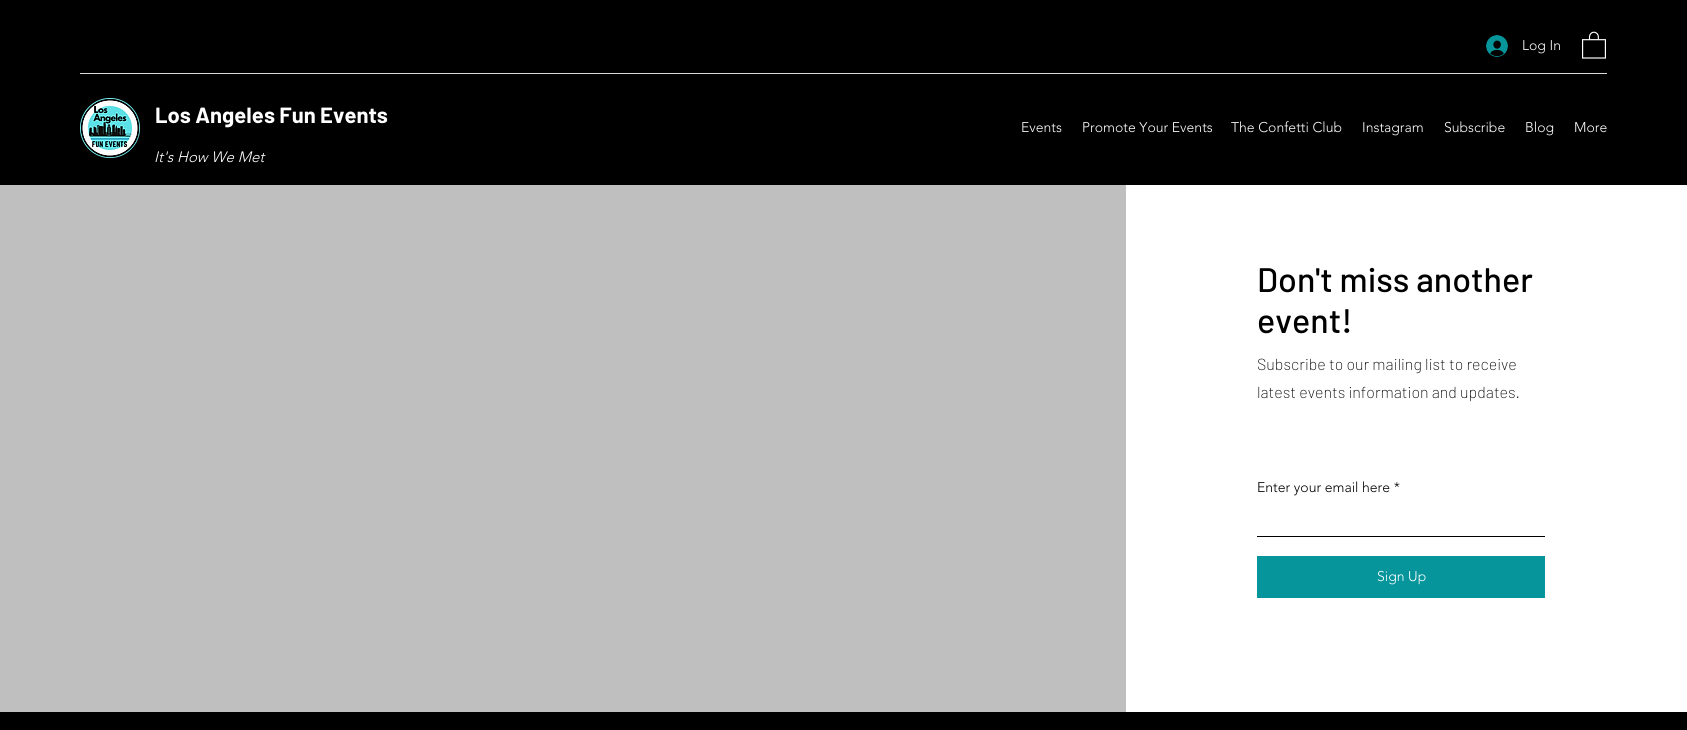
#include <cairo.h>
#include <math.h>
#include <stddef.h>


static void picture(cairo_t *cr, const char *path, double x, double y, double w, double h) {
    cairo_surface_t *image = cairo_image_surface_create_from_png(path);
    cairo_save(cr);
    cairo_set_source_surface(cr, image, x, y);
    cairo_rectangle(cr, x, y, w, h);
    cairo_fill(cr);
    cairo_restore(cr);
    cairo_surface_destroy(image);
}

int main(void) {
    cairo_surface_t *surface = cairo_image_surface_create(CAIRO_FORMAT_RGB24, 1687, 730);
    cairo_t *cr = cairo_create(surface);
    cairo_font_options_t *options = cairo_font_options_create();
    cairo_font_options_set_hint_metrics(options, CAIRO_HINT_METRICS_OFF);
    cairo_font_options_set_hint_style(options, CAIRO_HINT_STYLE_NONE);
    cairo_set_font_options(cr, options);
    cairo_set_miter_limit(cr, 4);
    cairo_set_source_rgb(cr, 1, 1, 1);
    cairo_paint(cr);
    cairo_set_source_rgb(cr, 0, 0, 0);
    cairo_rectangle(cr, 0, 0, 1687, 185);
    cairo_fill(cr);
    picture(cr, "img1.png", 1486, 35, 22, 22);
    cairo_select_font_face(cr, "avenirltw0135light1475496 Light", CAIRO_FONT_SLANT_NORMAL, CAIRO_FONT_WEIGHT_NORMAL);
    cairo_set_font_size(cr, 14);
    cairo_set_source_rgb(cr, 1, 1, 1);
    cairo_move_to(cr, 1522, 50);
    cairo_show_text(cr, "Log In");
    picture(cr, "img2.png", 1582, 31, 24, 28);
    cairo_set_source_rgb(cr, 0.851, 0.851, 0.851);
    cairo_rectangle(cr, 80, 73, 1527, 1);
    cairo_fill(cr);
    picture(cr, "img3.png", 80, 98, 60, 60);
    cairo_select_font_face(cr, "Barlow", CAIRO_FONT_SLANT_NORMAL, CAIRO_FONT_WEIGHT_BOLD);
    cairo_set_font_size(cr, 22);
    cairo_set_source_rgb(cr, 1, 1, 1);
    cairo_move_to(cr, 155, 123);
    cairo_show_text(cr, "Los Angeles Fun Events");
    cairo_select_font_face(cr, "avenirltw0135light1475496 Light", CAIRO_FONT_SLANT_ITALIC, CAIRO_FONT_WEIGHT_NORMAL);
    cairo_set_font_size(cr, 15);
    cairo_move_to(cr, 154, 162);
    cairo_show_text(cr, "It's How We Met");
    cairo_select_font_face(cr, "avenirltw0135light1475496 Light", CAIRO_FONT_SLANT_NORMAL, CAIRO_FONT_WEIGHT_NORMAL);
    cairo_set_font_size(cr, 14);
    cairo_move_to(cr, 1021, 132);
    cairo_show_text(cr, "Events");
    cairo_move_to(cr, 1082, 132);
    cairo_show_text(cr, "Promote Your Events");
    cairo_move_to(cr, 1231, 132);
    cairo_show_text(cr, "The Confetti Club");
    cairo_move_to(cr, 1362, 132);
    cairo_show_text(cr, "Instagram");
    cairo_move_to(cr, 1444, 132);
    cairo_show_text(cr, "Subscribe");
    cairo_move_to(cr, 1525, 132);
    cairo_show_text(cr, "Blog");
    cairo_move_to(cr, 1574, 132);
    cairo_show_text(cr, "More");
    cairo_set_source_rgb(cr, 0.749, 0.749, 0.749);
    cairo_rectangle(cr, 0, 185, 1126, 527);
    cairo_fill(cr);
    cairo_select_font_face(cr, "Barlow Medium", CAIRO_FONT_SLANT_NORMAL, CAIRO_FONT_WEIGHT_NORMAL);
    cairo_set_font_size(cr, 34);
    cairo_set_source_rgb(cr, 0, 0, 0);
    cairo_move_to(cr, 1257, 292);
    cairo_show_text(cr, "Don't miss another");
    cairo_move_to(cr, 1257, 333);
    cairo_show_text(cr, "event!");
    cairo_select_font_face(cr, "Barlow ExtraLight", CAIRO_FONT_SLANT_NORMAL, CAIRO_FONT_WEIGHT_NORMAL);
    cairo_set_font_size(cr, 16);
    cairo_move_to(cr, 1257, 370);
    cairo_show_text(cr, "Subscribe to our mailing list to receive");
    cairo_move_to(cr, 1257, 398);
    cairo_show_text(cr, "latest events information and updates.");
    cairo_select_font_face(cr, "avenirltw0135light1475496 Light", CAIRO_FONT_SLANT_NORMAL, CAIRO_FONT_WEIGHT_NORMAL);
    cairo_set_font_size(cr, 14);
    cairo_move_to(cr, 1257, 492);
    cairo_show_text(cr, "Enter your email here *");
    cairo_rectangle(cr, 1257, 536, 288, 1);
    cairo_fill(cr);
    cairo_set_source_rgb(cr, 0.02, 0.584, 0.608);
    cairo_rectangle(cr, 1257, 556, 288, 42);
    cairo_fill(cr);
    cairo_set_source_rgb(cr, 1, 1, 1);
    cairo_move_to(cr, 1377, 581);
    cairo_show_text(cr, "Sign Up");
    cairo_set_source_rgb(cr, 0, 0, 0);
    cairo_rectangle(cr, 0, 712, 1687, 18);
    cairo_fill(cr);
    cairo_surface_write_to_png(surface, "page.png");
    cairo_font_options_destroy(options);
    cairo_destroy(cr);
    cairo_surface_destroy(surface);
    return 0;
}
